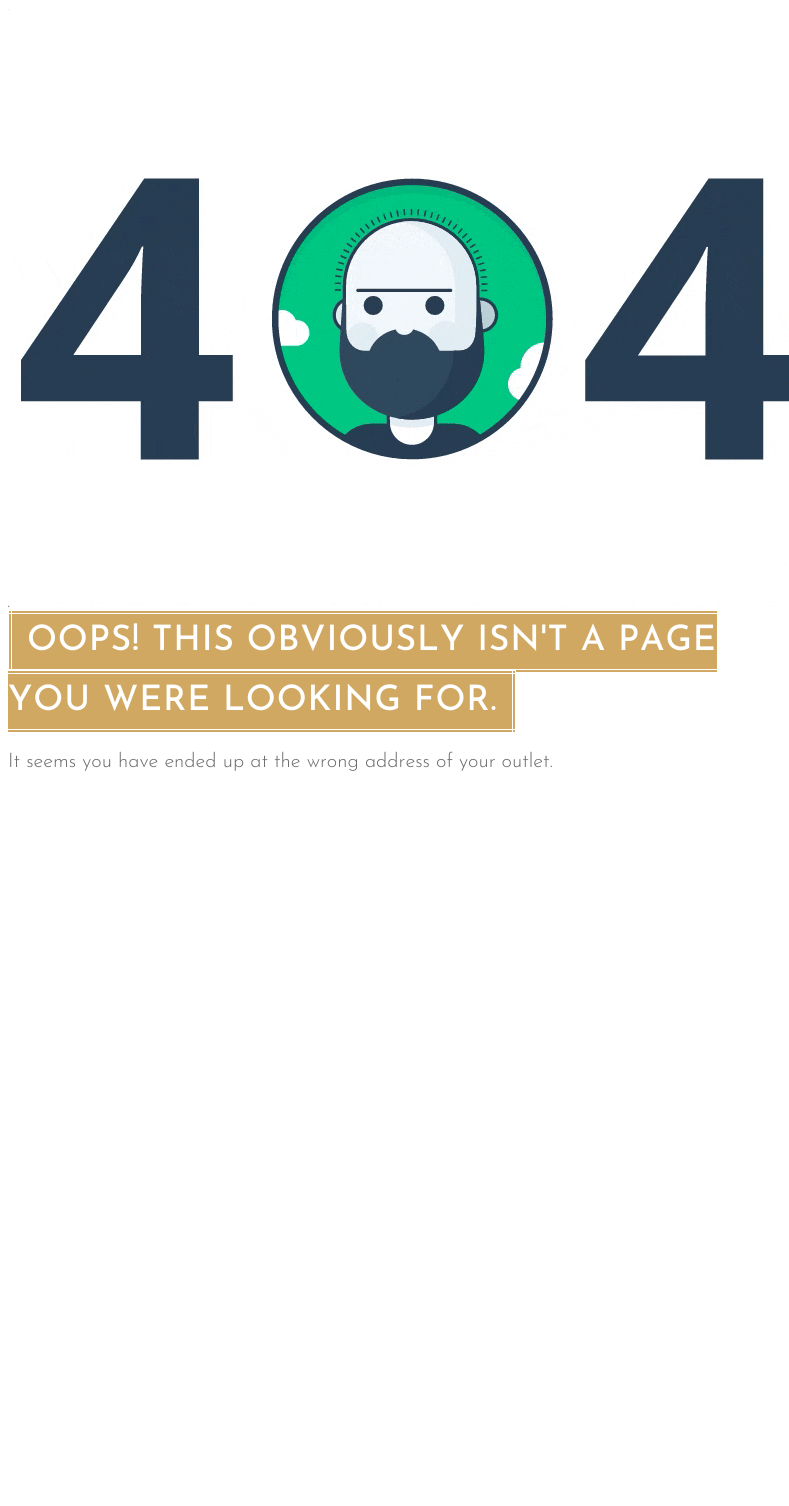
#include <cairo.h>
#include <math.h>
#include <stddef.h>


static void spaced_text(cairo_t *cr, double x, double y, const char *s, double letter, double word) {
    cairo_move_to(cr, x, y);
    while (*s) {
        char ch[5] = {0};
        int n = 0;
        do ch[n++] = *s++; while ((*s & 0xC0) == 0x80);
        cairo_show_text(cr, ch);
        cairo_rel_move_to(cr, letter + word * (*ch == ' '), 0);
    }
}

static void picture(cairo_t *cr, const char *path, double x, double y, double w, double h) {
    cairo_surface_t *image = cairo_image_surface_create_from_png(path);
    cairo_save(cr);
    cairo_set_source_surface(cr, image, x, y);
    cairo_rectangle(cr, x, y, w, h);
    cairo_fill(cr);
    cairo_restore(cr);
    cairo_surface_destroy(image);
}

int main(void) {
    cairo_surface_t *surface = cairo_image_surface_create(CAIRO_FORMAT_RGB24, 789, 1506);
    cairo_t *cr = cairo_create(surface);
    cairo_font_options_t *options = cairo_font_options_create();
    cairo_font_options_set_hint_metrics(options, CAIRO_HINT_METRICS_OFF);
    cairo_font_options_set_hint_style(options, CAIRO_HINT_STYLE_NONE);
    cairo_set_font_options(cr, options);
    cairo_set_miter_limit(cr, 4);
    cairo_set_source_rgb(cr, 1, 1, 1);
    cairo_paint(cr);
    picture(cr, "img1.png", 8, 9, 781, 599);
    cairo_set_source_rgb(cr, 0.82, 0.659, 0.38);
    cairo_rectangle(cr, 9, 611, 708, 61);
    cairo_fill(cr);
    cairo_select_font_face(cr, "Josefin Sans Medium", CAIRO_FONT_SLANT_NORMAL, CAIRO_FONT_WEIGHT_NORMAL);
    cairo_set_font_size(cr, 35);
    cairo_set_source_rgb(cr, 1, 1, 1);
    spaced_text(cr, 27, 650, "OOPS! THIS OBVIOUSLY ISN'T A PAGE", 0.9, 0);
    cairo_rectangle(cr, 8, 613, 709, 1);
    cairo_fill(cr);
    cairo_rectangle(cr, 8, 669, 709, 1);
    cairo_fill(cr);
    cairo_rectangle(cr, 11, 610, 1, 63);
    cairo_fill(cr);
    cairo_rectangle(cr, 8, 670, 508, 1);
    cairo_fill(cr);
    cairo_rectangle(cr, 515, 670, 1, 2);
    cairo_fill(cr);
    cairo_set_source_rgb(cr, 0.82, 0.659, 0.38);
    cairo_rectangle(cr, 8, 671, 507, 61);
    cairo_fill(cr);
    cairo_set_source_rgb(cr, 1, 1, 1);
    spaced_text(cr, 8, 710, "YOU WERE LOOKING FOR.", 0.9, 0);
    cairo_rectangle(cr, 8, 673, 508, 1);
    cairo_fill(cr);
    cairo_rectangle(cr, 512, 670, 1, 63);
    cairo_fill(cr);
    cairo_rectangle(cr, 8, 729, 508, 1);
    cairo_fill(cr);
    cairo_select_font_face(cr, "Josefin Sans Light", CAIRO_FONT_SLANT_NORMAL, CAIRO_FONT_WEIGHT_NORMAL);
    cairo_set_font_size(cr, 20);
    cairo_set_source_rgb(cr, 0.412, 0.404, 0.404);
    cairo_move_to(cr, 8, 767);
    cairo_show_text(cr, "It seems you have ended up at the wrong address of your outlet.");
    cairo_surface_write_to_png(surface, "page.png");
    cairo_font_options_destroy(options);
    cairo_destroy(cr);
    cairo_surface_destroy(surface);
    return 0;
}
